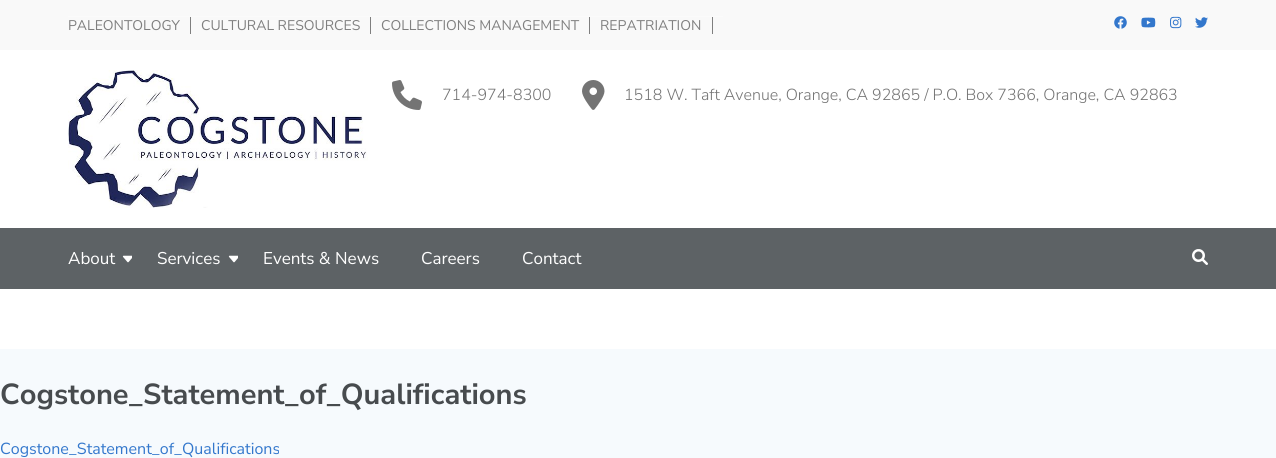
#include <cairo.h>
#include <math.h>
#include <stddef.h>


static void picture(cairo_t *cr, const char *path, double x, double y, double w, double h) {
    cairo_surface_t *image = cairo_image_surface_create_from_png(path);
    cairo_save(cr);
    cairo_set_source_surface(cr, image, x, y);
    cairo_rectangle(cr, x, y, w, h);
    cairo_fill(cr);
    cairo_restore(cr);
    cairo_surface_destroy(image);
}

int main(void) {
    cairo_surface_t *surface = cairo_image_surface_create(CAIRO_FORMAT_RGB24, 1276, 458);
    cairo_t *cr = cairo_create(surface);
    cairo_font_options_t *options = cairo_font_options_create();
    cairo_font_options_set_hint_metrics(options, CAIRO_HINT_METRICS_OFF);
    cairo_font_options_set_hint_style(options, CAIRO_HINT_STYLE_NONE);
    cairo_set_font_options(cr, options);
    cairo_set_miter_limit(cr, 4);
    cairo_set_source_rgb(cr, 1, 1, 1);
    cairo_paint(cr);
    cairo_set_source_rgb(cr, 0.973, 0.973, 0.973);
    cairo_rectangle(cr, 0, 0, 1276, 50);
    cairo_fill(cr);
    cairo_set_source_rgb(cr, 0.984, 0.984, 0.984);
    cairo_rectangle(cr, 68, 16, 655, 1);
    cairo_fill(cr);
    cairo_set_source_rgb(cr, 0.498, 0.498, 0.498);
    cairo_rectangle(cr, 190, 17, 1, 17);
    cairo_fill(cr);
    cairo_select_font_face(cr, "Nunito Sans", CAIRO_FONT_SLANT_NORMAL, CAIRO_FONT_WEIGHT_NORMAL);
    cairo_set_font_size(cr, 14);
    cairo_move_to(cr, 68, 30);
    cairo_show_text(cr, "PALEONTOLOGY");
    cairo_rectangle(cr, 370, 17, 1, 17);
    cairo_fill(cr);
    cairo_move_to(cr, 201, 30);
    cairo_show_text(cr, "CULTURAL RESOURCES");
    cairo_rectangle(cr, 589, 17, 1, 17);
    cairo_fill(cr);
    cairo_move_to(cr, 381, 30);
    cairo_show_text(cr, "COLLECTIONS MANAGEMENT");
    cairo_rectangle(cr, 712, 17, 1, 17);
    cairo_fill(cr);
    cairo_move_to(cr, 600, 30);
    cairo_show_text(cr, "REPATRIATION");
    picture(cr, "img1.png", 1114, 16, 13, 13);
    picture(cr, "img2.png", 1141, 17, 15, 11);
    picture(cr, "img3.png", 1170, 16, 12, 13);
    picture(cr, "img4.png", 1195, 17, 13, 11);
    picture(cr, "img5.png", 68, 70, 300, 138);
    picture(cr, "img6.png", 392, 80, 30, 30);
    cairo_select_font_face(cr, "Nunito Sans Light", CAIRO_FONT_SLANT_NORMAL, CAIRO_FONT_WEIGHT_NORMAL);
    cairo_set_font_size(cr, 16);
    cairo_set_source_rgb(cr, 0.455, 0.455, 0.455);
    cairo_move_to(cr, 442, 100);
    cairo_show_text(cr, "714-974-8300");
    picture(cr, "img7.png", 582, 80, 23, 30);
    cairo_move_to(cr, 624, 100);
    cairo_show_text(cr, "1518 W. Taft Avenue, Orange, CA 92865 / P.O. Box 7366, Orange, CA 92863");
    cairo_set_source_rgb(cr, 0.365, 0.384, 0.396);
    cairo_rectangle(cr, 0, 228, 1276, 61);
    cairo_fill(cr);
    cairo_select_font_face(cr, "Nunito Sans", CAIRO_FONT_SLANT_NORMAL, CAIRO_FONT_WEIGHT_NORMAL);
    cairo_set_font_size(cr, 17);
    cairo_set_source_rgb(cr, 1, 1, 1);
    cairo_move_to(cr, 68, 264);
    cairo_show_text(cr, "About");
    picture(cr, "img8.png", 122, 255, 10, 8);
    cairo_move_to(cr, 157, 264);
    cairo_show_text(cr, "Services");
    picture(cr, "img8.png", 228, 255, 10, 8);
    cairo_move_to(cr, 263, 264);
    cairo_show_text(cr, "Events & News");
    cairo_move_to(cr, 421, 264);
    cairo_show_text(cr, "Careers");
    cairo_move_to(cr, 522, 264);
    cairo_show_text(cr, "Contact");
    picture(cr, "img9.png", 1192, 249, 16, 16);
    cairo_set_source_rgb(cr, 0.961, 0.98, 0.992);
    cairo_rectangle(cr, 0, 349, 1276, 109);
    cairo_fill(cr);
    cairo_select_font_face(cr, "Nunito Sans", CAIRO_FONT_SLANT_NORMAL, CAIRO_FONT_WEIGHT_BOLD);
    cairo_set_font_size(cr, 29);
    cairo_set_source_rgb(cr, 0.278, 0.294, 0.306);
    cairo_move_to(cr, 0, 404);
    cairo_show_text(cr, "Cogstone_Statement_of_Qualifications");
    cairo_select_font_face(cr, "Nunito Sans", CAIRO_FONT_SLANT_NORMAL, CAIRO_FONT_WEIGHT_NORMAL);
    cairo_set_font_size(cr, 16);
    cairo_set_source_rgb(cr, 0.2, 0.467, 0.8);
    cairo_move_to(cr, 0, 454);
    cairo_show_text(cr, "Cogstone_Statement_of_Qualifications");
    cairo_surface_write_to_png(surface, "page.png");
    cairo_font_options_destroy(options);
    cairo_destroy(cr);
    cairo_surface_destroy(surface);
    return 0;
}
